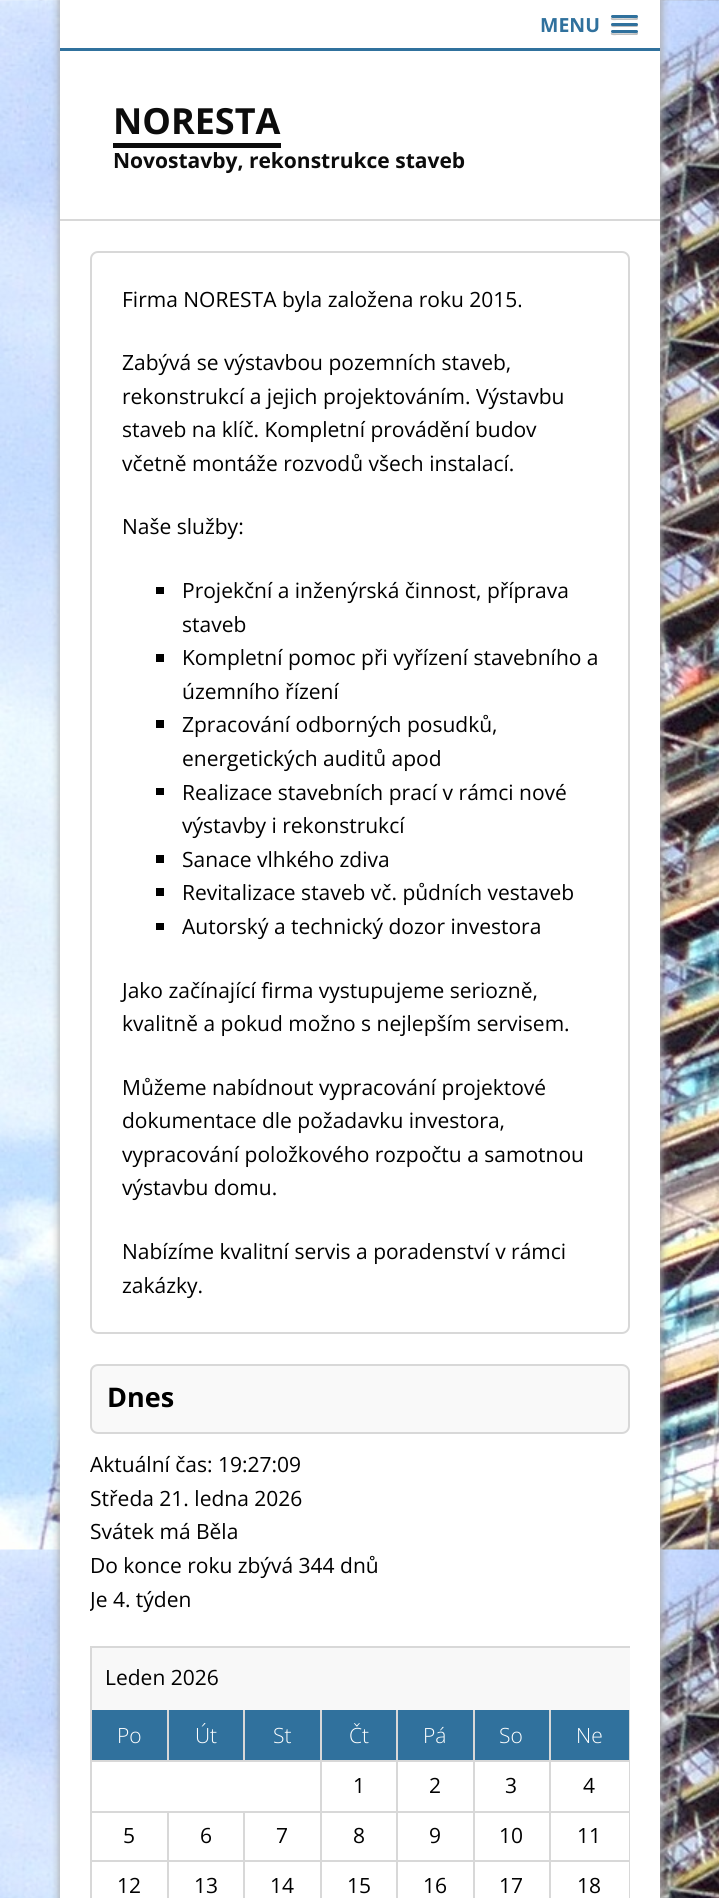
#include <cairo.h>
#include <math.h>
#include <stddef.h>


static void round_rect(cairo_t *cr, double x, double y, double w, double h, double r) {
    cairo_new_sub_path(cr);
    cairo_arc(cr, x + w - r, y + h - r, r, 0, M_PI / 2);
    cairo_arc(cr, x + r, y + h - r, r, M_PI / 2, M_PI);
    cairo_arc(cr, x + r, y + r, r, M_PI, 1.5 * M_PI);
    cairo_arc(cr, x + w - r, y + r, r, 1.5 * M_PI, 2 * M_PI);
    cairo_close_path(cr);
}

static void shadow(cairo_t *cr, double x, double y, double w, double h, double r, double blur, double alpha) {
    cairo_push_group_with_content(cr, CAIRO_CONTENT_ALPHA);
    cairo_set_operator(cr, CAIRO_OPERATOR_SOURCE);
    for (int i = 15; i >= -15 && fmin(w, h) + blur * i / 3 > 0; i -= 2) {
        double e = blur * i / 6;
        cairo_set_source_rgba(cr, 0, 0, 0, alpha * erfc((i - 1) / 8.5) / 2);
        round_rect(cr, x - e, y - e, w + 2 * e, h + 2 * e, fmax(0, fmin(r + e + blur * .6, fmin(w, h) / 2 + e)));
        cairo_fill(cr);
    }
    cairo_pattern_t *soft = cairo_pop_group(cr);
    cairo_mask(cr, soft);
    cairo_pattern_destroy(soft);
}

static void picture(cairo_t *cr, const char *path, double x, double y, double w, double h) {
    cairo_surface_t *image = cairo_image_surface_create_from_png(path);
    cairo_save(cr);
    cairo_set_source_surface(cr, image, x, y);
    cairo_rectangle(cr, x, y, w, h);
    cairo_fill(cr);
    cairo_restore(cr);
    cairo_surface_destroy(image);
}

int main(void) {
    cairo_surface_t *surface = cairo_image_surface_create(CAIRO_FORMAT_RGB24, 719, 1898);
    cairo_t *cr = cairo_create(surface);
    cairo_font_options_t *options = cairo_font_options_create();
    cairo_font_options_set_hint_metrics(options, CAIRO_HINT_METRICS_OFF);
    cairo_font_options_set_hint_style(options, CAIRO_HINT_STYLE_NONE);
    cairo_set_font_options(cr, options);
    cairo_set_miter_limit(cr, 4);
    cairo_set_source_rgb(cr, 1, 1, 1);
    cairo_paint(cr);
    picture(cr, "img1.png", 0, 0, 719, 1898);
    cairo_set_source_rgb(cr, 0.659, 0.659, 0.659);
    shadow(cr, 59, -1, 603, 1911, 0, 4, 1);
    cairo_set_source_rgb(cr, 1, 1, 1);
    cairo_rectangle(cr, 60, 0, 600, 1898);
    cairo_fill(cr);
    cairo_set_source_rgb(cr, 0.188, 0.443, 0.616);
    cairo_rectangle(cr, 60, 48, 600, 3);
    cairo_fill(cr);
    cairo_select_font_face(cr, "Open Sans", CAIRO_FONT_SLANT_NORMAL, CAIRO_FONT_WEIGHT_BOLD);
    cairo_set_font_size(cr, 19.5);
    cairo_move_to(cr, 540, 32);
    cairo_show_text(cr, "MENU");
    cairo_set_source_rgb(cr, 0.749, 0.749, 0.749);
    cairo_new_path(cr);
    cairo_move_to(cr, 611, 18);
    cairo_curve_to(cr, 609.5, 21, 616.5, 20, 616.5, 20);
    cairo_line_to(cr, 637, 20);
    cairo_curve_to(cr, 638, 19.5, 638.5, 18, 637.5, 17);
    cairo_line_to(cr, 636, 18);
    cairo_curve_to(cr, 634, 18.5, 612, 18.5, 611, 18);
    cairo_close_path(cr);
    cairo_fill(cr);
    cairo_set_source_rgb(cr, 0.188, 0.443, 0.616);
    round_rect(cr, 611, 15, 27, 3, 1.5);
    cairo_fill(cr);
    cairo_set_source_rgb(cr, 0.749, 0.749, 0.749);
    cairo_new_path(cr);
    cairo_move_to(cr, 611, 25);
    cairo_curve_to(cr, 610.5, 28, 616, 27, 616.5, 27);
    cairo_line_to(cr, 636.5, 27);
    cairo_curve_to(cr, 638, 27, 638.5, 25, 637.5, 24.5);
    cairo_line_to(cr, 636.5, 25.5);
    cairo_curve_to(cr, 635, 26, 611.5, 25.5, 611, 25);
    cairo_close_path(cr);
    cairo_fill(cr);
    cairo_set_source_rgb(cr, 0.188, 0.443, 0.616);
    round_rect(cr, 611, 23, 27, 3, 1.5);
    cairo_fill(cr);
    cairo_set_source_rgb(cr, 0.749, 0.749, 0.749);
    cairo_new_path(cr);
    cairo_move_to(cr, 611, 33);
    cairo_curve_to(cr, 609.5, 36, 616.5, 35, 616.5, 35);
    cairo_line_to(cr, 637, 35);
    cairo_curve_to(cr, 638, 34.5, 638.5, 33, 637.5, 32);
    cairo_line_to(cr, 636, 33);
    cairo_curve_to(cr, 634, 33.5, 612, 33.5, 611, 33);
    cairo_close_path(cr);
    cairo_fill(cr);
    cairo_set_source_rgb(cr, 0.188, 0.443, 0.616);
    round_rect(cr, 611, 30, 27, 3, 1.5);
    cairo_fill(cr);
    cairo_set_source_rgb(cr, 0.847, 0.847, 0.847);
    cairo_rectangle(cr, 60, 219, 600, 2);
    cairo_fill(cr);
    cairo_set_source_rgb(cr, 0.047, 0.047, 0.047);
    cairo_rectangle(cr, 113, 143, 168, 5);
    cairo_fill(cr);
    cairo_set_font_size(cr, 36);
    cairo_move_to(cr, 113, 134);
    cairo_show_text(cr, "NORESTA");
    cairo_set_font_size(cr, 21);
    cairo_move_to(cr, 113, 168);
    cairo_show_text(cr, "Novostavby, rekonstrukce staveb");
    round_rect(cr, 91, 252, 538, 1081, 7);
    cairo_set_source_rgb(cr, 0.847, 0.847, 0.847);
    cairo_stroke(cr);
    cairo_select_font_face(cr, "Open Sans", CAIRO_FONT_SLANT_NORMAL, CAIRO_FONT_WEIGHT_NORMAL);
    cairo_set_source_rgb(cr, 0, 0, 0);
    cairo_move_to(cr, 122, 307);
    cairo_show_text(cr, "Firma NORESTA byla založena roku 2015.");
    cairo_move_to(cr, 122, 370);
    cairo_show_text(cr, "Zabývá se výstavbou pozemních staveb,");
    cairo_move_to(cr, 122, 404);
    cairo_show_text(cr, "rekonstrukcí a jejich projektováním. Výstavbu");
    cairo_move_to(cr, 122, 437);
    cairo_show_text(cr, "staveb na klíč. Kompletní provádění budov");
    cairo_move_to(cr, 122, 471);
    cairo_show_text(cr, "včetně montáže rozvodů všech instalací.");
    cairo_move_to(cr, 122, 534);
    cairo_show_text(cr, "Naše služby:");
    cairo_rectangle(cr, 156, 587, 8, 7);
    cairo_fill(cr);
    cairo_move_to(cr, 182, 598);
    cairo_show_text(cr, "Projekční a inženýrská činnost, příprava");
    cairo_move_to(cr, 182, 632);
    cairo_show_text(cr, "staveb");
    cairo_rectangle(cr, 156, 654, 8, 8);
    cairo_fill(cr);
    cairo_move_to(cr, 182, 665);
    cairo_show_text(cr, "Kompletní pomoc při vyřízení stavebního a");
    cairo_move_to(cr, 182, 699);
    cairo_show_text(cr, "územního řízení");
    cairo_rectangle(cr, 156, 720, 8, 8);
    cairo_fill(cr);
    cairo_move_to(cr, 182, 732);
    cairo_show_text(cr, "Zpracování odborných posudků,");
    cairo_move_to(cr, 182, 766);
    cairo_show_text(cr, "energetických auditů apod");
    cairo_rectangle(cr, 156, 788, 8, 7);
    cairo_fill(cr);
    cairo_move_to(cr, 182, 800);
    cairo_show_text(cr, "Realizace stavebních prací v rámci nové");
    cairo_move_to(cr, 182, 833);
    cairo_show_text(cr, "výstavby i rekonstrukcí");
    cairo_rectangle(cr, 156, 855, 8, 8);
    cairo_fill(cr);
    cairo_move_to(cr, 182, 867);
    cairo_show_text(cr, "Sanace vlhkého zdiva");
    cairo_rectangle(cr, 156, 888, 8, 8);
    cairo_fill(cr);
    cairo_move_to(cr, 182, 900);
    cairo_show_text(cr, "Revitalizace staveb vč. půdních vestaveb");
    cairo_rectangle(cr, 156, 923, 8, 7);
    cairo_fill(cr);
    cairo_move_to(cr, 182, 934);
    cairo_show_text(cr, "Autorský a technický dozor investora");
    cairo_move_to(cr, 122, 998);
    cairo_show_text(cr, "Jako začínající firma vystupujeme seriozně,");
    cairo_move_to(cr, 122, 1031);
    cairo_show_text(cr, "kvalitně a pokud možno s nejlepším servisem.");
    cairo_move_to(cr, 122, 1095);
    cairo_show_text(cr, "Můžeme nabídnout vypracování projektové");
    cairo_move_to(cr, 122, 1128);
    cairo_show_text(cr, "dokumentace dle požadavku investora,");
    cairo_move_to(cr, 122, 1162);
    cairo_show_text(cr, "vypracování položkového rozpočtu a samotnou");
    cairo_move_to(cr, 122, 1195);
    cairo_show_text(cr, "výstavbu domu.");
    cairo_move_to(cr, 122, 1259);
    cairo_show_text(cr, "Nabízíme kvalitní servis a poradenství v rámci");
    cairo_move_to(cr, 122, 1293);
    cairo_show_text(cr, "zakázky.");
    cairo_set_source_rgb(cr, 0.976, 0.976, 0.976);
    round_rect(cr, 91, 1365, 538, 68, 7);
    cairo_fill_preserve(cr);
    cairo_set_source_rgb(cr, 0.847, 0.847, 0.847);
    cairo_stroke(cr);
    cairo_select_font_face(cr, "Open Sans", CAIRO_FONT_SLANT_NORMAL, CAIRO_FONT_WEIGHT_BOLD);
    cairo_set_font_size(cr, 27);
    cairo_set_source_rgb(cr, 0, 0, 0);
    cairo_move_to(cr, 107, 1407);
    cairo_show_text(cr, "Dnes");
    cairo_select_font_face(cr, "Open Sans", CAIRO_FONT_SLANT_NORMAL, CAIRO_FONT_WEIGHT_NORMAL);
    cairo_set_font_size(cr, 21);
    cairo_move_to(cr, 90, 1472);
    cairo_show_text(cr, "Aktuální čas: 19:27:09");
    cairo_move_to(cr, 90, 1506);
    cairo_show_text(cr, "Středa 21. ledna 2026");
    cairo_move_to(cr, 90, 1539);
    cairo_show_text(cr, "Svátek má Běla");
    cairo_move_to(cr, 90, 1573);
    cairo_show_text(cr, "Do konce roku zbývá 344 dnů");
    cairo_save(cr);
    cairo_rectangle(cr, 90, 1364, 540, 252);
    cairo_clip(cr);
    cairo_move_to(cr, 90, 1607);
    cairo_show_text(cr, "Je 4. týden");
    cairo_restore(cr);
    cairo_set_source_rgb(cr, 0.847, 0.847, 0.847);
    cairo_rectangle(cr, 90, 1646, 540, 2);
    cairo_fill(cr);
    cairo_rectangle(cr, 90, 1646, 2, 252);
    cairo_fill(cr);
    cairo_set_source_rgb(cr, 0.969, 0.969, 0.969);
    cairo_rectangle(cr, 92, 1648, 538, 62);
    cairo_fill(cr);
    cairo_set_source_rgb(cr, 0, 0, 0);
    cairo_move_to(cr, 105, 1685);
    cairo_show_text(cr, "Leden 2026");
    cairo_set_source_rgb(cr, 0.188, 0.443, 0.616);
    cairo_rectangle(cr, 92, 1710, 75, 50);
    cairo_fill(cr);
    cairo_set_source_rgb(cr, 0.847, 0.847, 0.847);
    cairo_rectangle(cr, 549, 1860, 2, 38);
    cairo_fill(cr);
    cairo_rectangle(cr, 629, 1710, 1, 188);
    cairo_fill(cr);
    cairo_rectangle(cr, 549, 1860, 81, 2);
    cairo_fill(cr);
    cairo_rectangle(cr, 549, 1811, 2, 51);
    cairo_fill(cr);
    cairo_rectangle(cr, 549, 1811, 81, 2);
    cairo_fill(cr);
    cairo_rectangle(cr, 549, 1760, 2, 52);
    cairo_fill(cr);
    cairo_rectangle(cr, 549, 1760, 81, 2);
    cairo_fill(cr);
    cairo_rectangle(cr, 549, 1710, 2, 51);
    cairo_fill(cr);
    cairo_rectangle(cr, 473, 1860, 2, 38);
    cairo_fill(cr);
    cairo_rectangle(cr, 473, 1860, 78, 2);
    cairo_fill(cr);
    cairo_rectangle(cr, 473, 1811, 2, 51);
    cairo_fill(cr);
    cairo_rectangle(cr, 473, 1811, 78, 2);
    cairo_fill(cr);
    cairo_rectangle(cr, 473, 1760, 2, 52);
    cairo_fill(cr);
    cairo_rectangle(cr, 473, 1760, 78, 2);
    cairo_fill(cr);
    cairo_rectangle(cr, 473, 1710, 2, 51);
    cairo_fill(cr);
    cairo_rectangle(cr, 396, 1860, 2, 38);
    cairo_fill(cr);
    cairo_rectangle(cr, 396, 1860, 78, 2);
    cairo_fill(cr);
    cairo_rectangle(cr, 396, 1811, 2, 51);
    cairo_fill(cr);
    cairo_rectangle(cr, 396, 1811, 78, 2);
    cairo_fill(cr);
    cairo_rectangle(cr, 396, 1760, 2, 52);
    cairo_fill(cr);
    cairo_rectangle(cr, 396, 1760, 78, 2);
    cairo_fill(cr);
    cairo_rectangle(cr, 396, 1710, 2, 51);
    cairo_fill(cr);
    cairo_rectangle(cr, 320, 1860, 2, 38);
    cairo_fill(cr);
    cairo_rectangle(cr, 320, 1860, 78, 2);
    cairo_fill(cr);
    cairo_rectangle(cr, 320, 1811, 2, 51);
    cairo_fill(cr);
    cairo_rectangle(cr, 320, 1811, 78, 2);
    cairo_fill(cr);
    cairo_rectangle(cr, 320, 1760, 2, 52);
    cairo_fill(cr);
    cairo_rectangle(cr, 320, 1760, 78, 2);
    cairo_fill(cr);
    cairo_rectangle(cr, 320, 1710, 2, 51);
    cairo_fill(cr);
    cairo_rectangle(cr, 243, 1760, 78, 2);
    cairo_fill(cr);
    cairo_rectangle(cr, 243, 1710, 2, 51);
    cairo_fill(cr);
    cairo_rectangle(cr, 167, 1760, 78, 2);
    cairo_fill(cr);
    cairo_rectangle(cr, 167, 1710, 2, 51);
    cairo_fill(cr);
    cairo_rectangle(cr, 90, 1760, 78, 2);
    cairo_fill(cr);
    cairo_select_font_face(cr, "Open Sans Light", CAIRO_FONT_SLANT_NORMAL, CAIRO_FONT_WEIGHT_NORMAL);
    cairo_set_source_rgb(cr, 1, 1, 1);
    cairo_move_to(cr, 117, 1743);
    cairo_show_text(cr, "Po");
    cairo_set_source_rgb(cr, 0.188, 0.443, 0.616);
    cairo_rectangle(cr, 169, 1710, 74, 50);
    cairo_fill(cr);
    cairo_set_source_rgb(cr, 1, 1, 1);
    cairo_move_to(cr, 195, 1743);
    cairo_show_text(cr, "Út");
    cairo_set_source_rgb(cr, 0.188, 0.443, 0.616);
    cairo_rectangle(cr, 245, 1710, 75, 50);
    cairo_fill(cr);
    cairo_set_source_rgb(cr, 1, 1, 1);
    cairo_move_to(cr, 273, 1743);
    cairo_show_text(cr, "St");
    cairo_set_source_rgb(cr, 0.188, 0.443, 0.616);
    cairo_rectangle(cr, 322, 1710, 74, 50);
    cairo_fill(cr);
    cairo_set_source_rgb(cr, 1, 1, 1);
    cairo_move_to(cr, 349, 1743);
    cairo_show_text(cr, "Čt");
    cairo_set_source_rgb(cr, 0.188, 0.443, 0.616);
    cairo_rectangle(cr, 398, 1710, 75, 50);
    cairo_fill(cr);
    cairo_set_source_rgb(cr, 1, 1, 1);
    cairo_move_to(cr, 423, 1743);
    cairo_show_text(cr, "Pá");
    cairo_set_source_rgb(cr, 0.188, 0.443, 0.616);
    cairo_rectangle(cr, 475, 1710, 74, 50);
    cairo_fill(cr);
    cairo_set_source_rgb(cr, 1, 1, 1);
    cairo_move_to(cr, 499, 1743);
    cairo_show_text(cr, "So");
    cairo_set_source_rgb(cr, 0.188, 0.443, 0.616);
    cairo_rectangle(cr, 551, 1710, 78, 50);
    cairo_fill(cr);
    cairo_set_source_rgb(cr, 1, 1, 1);
    cairo_move_to(cr, 576, 1743);
    cairo_show_text(cr, "Ne");
    cairo_set_source_rgb(cr, 0.847, 0.847, 0.847);
    cairo_rectangle(cr, 243, 1860, 2, 38);
    cairo_fill(cr);
    cairo_rectangle(cr, 243, 1860, 78, 2);
    cairo_fill(cr);
    cairo_rectangle(cr, 243, 1811, 2, 51);
    cairo_fill(cr);
    cairo_rectangle(cr, 167, 1860, 2, 38);
    cairo_fill(cr);
    cairo_rectangle(cr, 167, 1860, 78, 2);
    cairo_fill(cr);
    cairo_rectangle(cr, 167, 1811, 2, 51);
    cairo_fill(cr);
    cairo_rectangle(cr, 90, 1811, 231, 2);
    cairo_fill(cr);
    cairo_select_font_face(cr, "Open Sans", CAIRO_FONT_SLANT_NORMAL, CAIRO_FONT_WEIGHT_NORMAL);
    cairo_set_source_rgb(cr, 0, 0, 0);
    cairo_move_to(cr, 353, 1793);
    cairo_show_text(cr, "1");
    cairo_move_to(cr, 429, 1793);
    cairo_show_text(cr, "2");
    cairo_move_to(cr, 505, 1793);
    cairo_show_text(cr, "3");
    cairo_move_to(cr, 583, 1793);
    cairo_show_text(cr, "4");
    cairo_set_source_rgb(cr, 0.847, 0.847, 0.847);
    cairo_rectangle(cr, 90, 1860, 78, 2);
    cairo_fill(cr);
    cairo_set_source_rgb(cr, 0, 0, 0);
    cairo_move_to(cr, 123, 1843);
    cairo_show_text(cr, "5");
    cairo_move_to(cr, 200, 1843);
    cairo_show_text(cr, "6");
    cairo_move_to(cr, 276, 1843);
    cairo_show_text(cr, "7");
    cairo_move_to(cr, 353, 1843);
    cairo_show_text(cr, "8");
    cairo_move_to(cr, 429, 1843);
    cairo_show_text(cr, "9");
    cairo_move_to(cr, 499, 1843);
    cairo_show_text(cr, "10");
    cairo_move_to(cr, 577, 1843);
    cairo_show_text(cr, "11");
    cairo_move_to(cr, 117, 1893);
    cairo_show_text(cr, "12");
    cairo_move_to(cr, 194, 1893);
    cairo_show_text(cr, "13");
    cairo_move_to(cr, 270, 1893);
    cairo_show_text(cr, "14");
    cairo_move_to(cr, 347, 1893);
    cairo_show_text(cr, "15");
    cairo_move_to(cr, 423, 1893);
    cairo_show_text(cr, "16");
    cairo_move_to(cr, 499, 1893);
    cairo_show_text(cr, "17");
    cairo_move_to(cr, 577, 1893);
    cairo_show_text(cr, "18");
    cairo_surface_write_to_png(surface, "page.png");
    cairo_font_options_destroy(options);
    cairo_destroy(cr);
    cairo_surface_destroy(surface);
    return 0;
}
